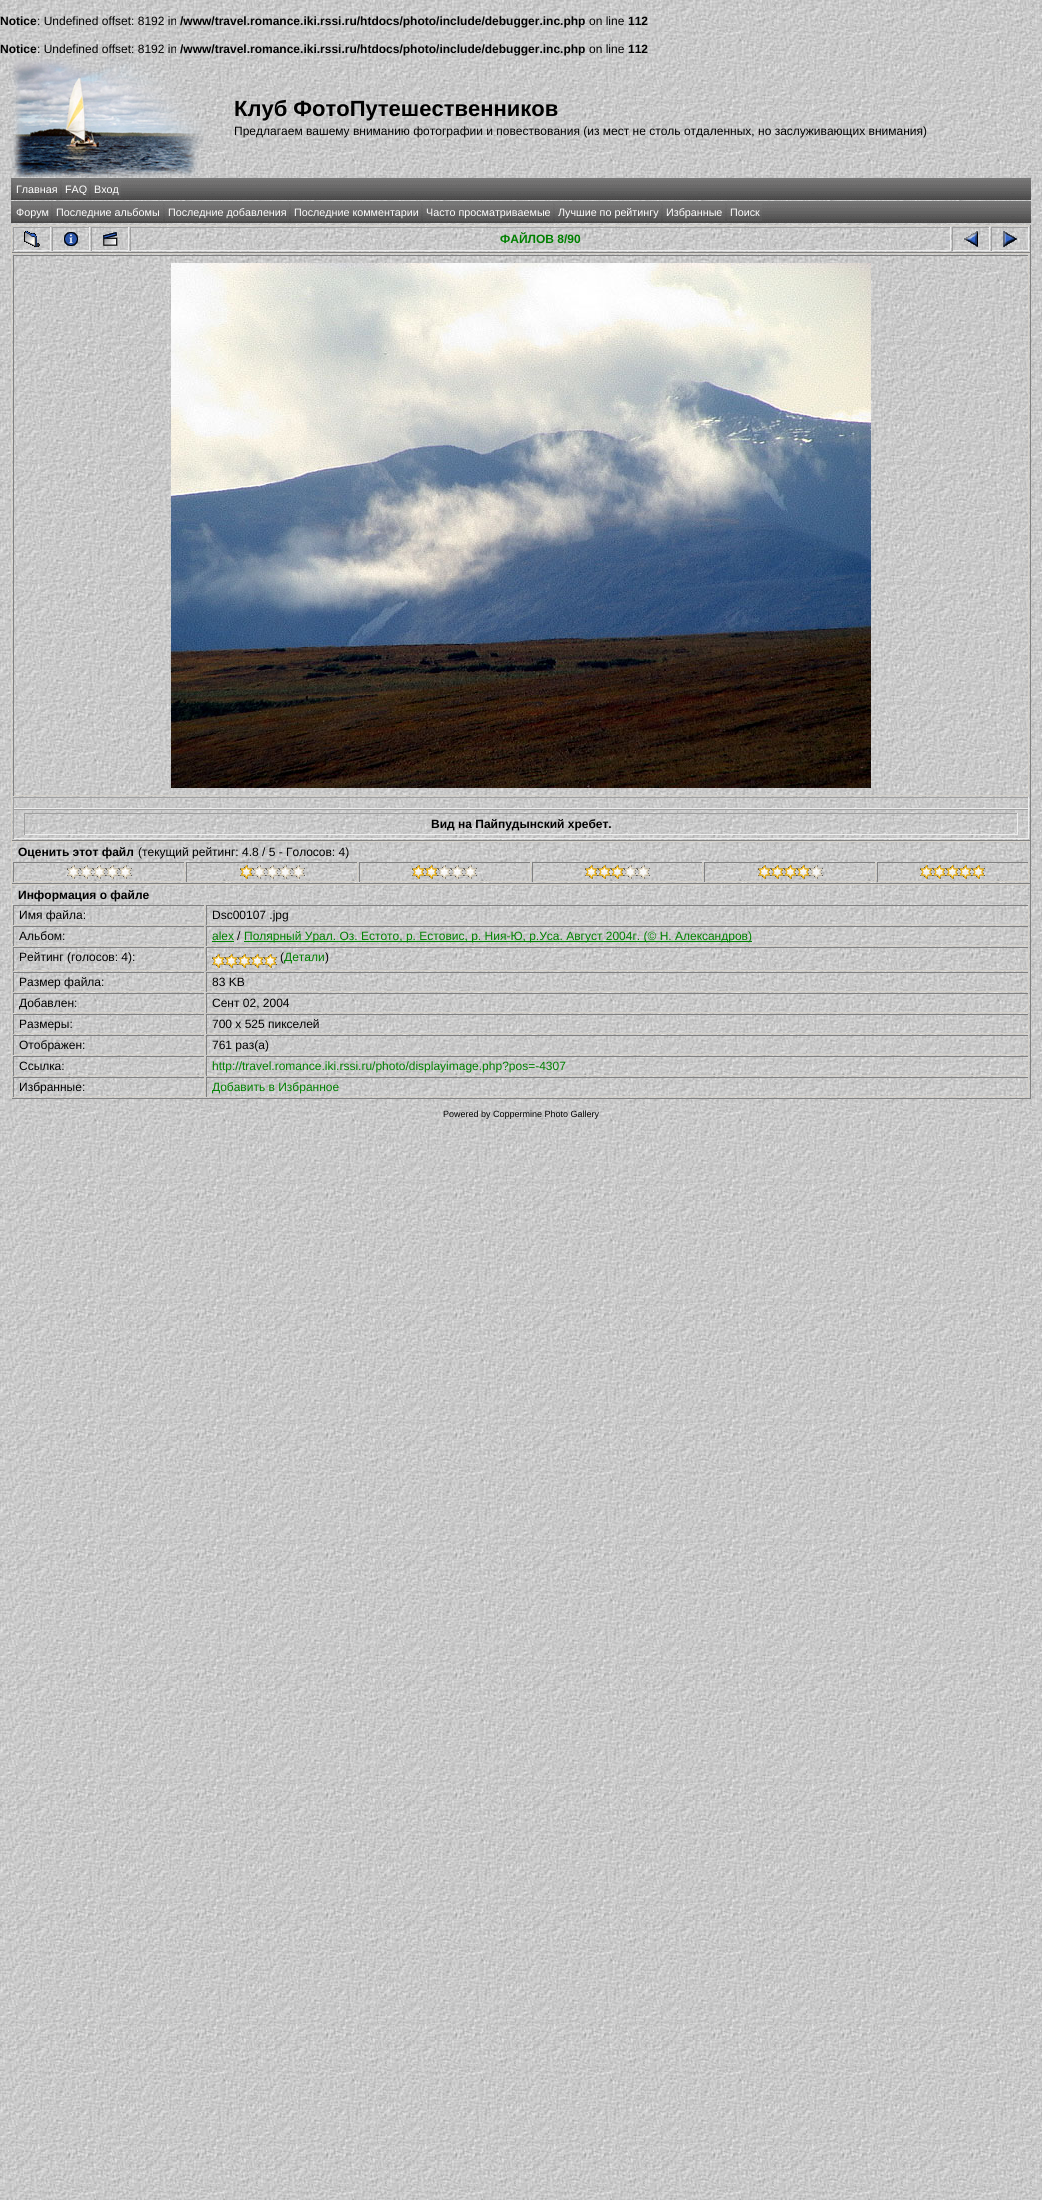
#include <cairo.h>
#include <math.h>
#include <stddef.h>


static void picture(cairo_t *cr, const char *path, double x, double y, double w, double h) {
    cairo_surface_t *image = cairo_image_surface_create_from_png(path);
    cairo_save(cr);
    cairo_set_source_surface(cr, image, x, y);
    cairo_rectangle(cr, x, y, w, h);
    cairo_fill(cr);
    cairo_restore(cr);
    cairo_surface_destroy(image);
}

int main(void) {
    cairo_surface_t *surface = cairo_image_surface_create(CAIRO_FORMAT_RGB24, 1042, 2200);
    cairo_t *cr = cairo_create(surface);
    cairo_font_options_t *options = cairo_font_options_create();
    cairo_font_options_set_hint_metrics(options, CAIRO_HINT_METRICS_OFF);
    cairo_font_options_set_hint_style(options, CAIRO_HINT_STYLE_NONE);
    cairo_set_font_options(cr, options);
    cairo_set_miter_limit(cr, 4);
    cairo_set_source_rgb(cr, 1, 1, 1);
    cairo_paint(cr);
    picture(cr, "img1.png", 0, 0, 1042, 2200);
    cairo_select_font_face(cr, "Liberation Sans", CAIRO_FONT_SLANT_NORMAL, CAIRO_FONT_WEIGHT_BOLD);
    cairo_set_font_size(cr, 12);
    cairo_set_source_rgb(cr, 0, 0, 0);
    cairo_move_to(cr, 0, 25);
    cairo_show_text(cr, "Notice");
    cairo_select_font_face(cr, "Liberation Sans", CAIRO_FONT_SLANT_NORMAL, CAIRO_FONT_WEIGHT_NORMAL);
    cairo_move_to(cr, 37, 25);
    cairo_show_text(cr, ": Undefined offset: 8192 in");
    cairo_select_font_face(cr, "Liberation Sans", CAIRO_FONT_SLANT_NORMAL, CAIRO_FONT_WEIGHT_BOLD);
    cairo_move_to(cr, 180, 25);
    cairo_show_text(cr, "/www/travel.romance.iki.rssi.ru/htdocs/photo/include/debugger.inc.php");
    cairo_select_font_face(cr, "Liberation Sans", CAIRO_FONT_SLANT_NORMAL, CAIRO_FONT_WEIGHT_NORMAL);
    cairo_move_to(cr, 589, 25);
    cairo_show_text(cr, "on line");
    cairo_select_font_face(cr, "Liberation Sans", CAIRO_FONT_SLANT_NORMAL, CAIRO_FONT_WEIGHT_BOLD);
    cairo_move_to(cr, 628, 25);
    cairo_show_text(cr, "112");
    cairo_move_to(cr, 0, 53);
    cairo_show_text(cr, "Notice");
    cairo_select_font_face(cr, "Liberation Sans", CAIRO_FONT_SLANT_NORMAL, CAIRO_FONT_WEIGHT_NORMAL);
    cairo_move_to(cr, 37, 53);
    cairo_show_text(cr, ": Undefined offset: 8192 in");
    cairo_select_font_face(cr, "Liberation Sans", CAIRO_FONT_SLANT_NORMAL, CAIRO_FONT_WEIGHT_BOLD);
    cairo_move_to(cr, 180, 53);
    cairo_show_text(cr, "/www/travel.romance.iki.rssi.ru/htdocs/photo/include/debugger.inc.php");
    cairo_select_font_face(cr, "Liberation Sans", CAIRO_FONT_SLANT_NORMAL, CAIRO_FONT_WEIGHT_NORMAL);
    cairo_move_to(cr, 589, 53);
    cairo_show_text(cr, "on line");
    cairo_select_font_face(cr, "Liberation Sans", CAIRO_FONT_SLANT_NORMAL, CAIRO_FONT_WEIGHT_BOLD);
    cairo_move_to(cr, 628, 53);
    cairo_show_text(cr, "112");
    picture(cr, "img2.png", 11, 57, 193, 120);
    cairo_set_font_size(cr, 22);
    cairo_move_to(cr, 234, 116);
    cairo_show_text(cr, "Клуб ФотоПутешественников");
    cairo_select_font_face(cr, "Liberation Sans", CAIRO_FONT_SLANT_NORMAL, CAIRO_FONT_WEIGHT_NORMAL);
    cairo_set_font_size(cr, 12);
    cairo_move_to(cr, 234, 135);
    cairo_show_text(cr, "Предлагаем вашему вниманию фотографии и повествования (из мест не столь отдаленных, но заслуживающих внимания)");
    picture(cr, "img3.png", 11, 178, 1020, 22);
    picture(cr, "img4.png", 13, 180, 47, 18);
    cairo_set_font_size(cr, 10.75);
    cairo_set_source_rgb(cr, 1, 1, 1);
    cairo_move_to(cr, 16, 193);
    cairo_show_text(cr, "Главная");
    picture(cr, "img5.png", 62, 180, 27, 18);
    cairo_move_to(cr, 65, 193);
    cairo_show_text(cr, "FAQ");
    picture(cr, "img6.png", 91, 180, 30, 18);
    cairo_move_to(cr, 94, 193);
    cairo_show_text(cr, "Вход");
    picture(cr, "img3.png", 11, 201, 1020, 22);
    picture(cr, "img7.png", 13, 203, 38, 18);
    cairo_move_to(cr, 16, 216);
    cairo_show_text(cr, "Форум");
    picture(cr, "img8.png", 53, 203, 110, 18);
    cairo_move_to(cr, 56, 216);
    cairo_show_text(cr, "Последние альбомы");
    picture(cr, "img9.png", 165, 203, 124, 18);
    cairo_move_to(cr, 168, 216);
    cairo_show_text(cr, "Последние добавления");
    picture(cr, "img10.png", 291, 203, 130, 18);
    cairo_move_to(cr, 294, 216);
    cairo_show_text(cr, "Последние комментарии");
    picture(cr, "img11.png", 423, 203, 130, 18);
    cairo_move_to(cr, 426, 216);
    cairo_show_text(cr, "Часто просматриваемые");
    picture(cr, "img12.png", 555, 203, 106, 18);
    cairo_move_to(cr, 558, 216);
    cairo_show_text(cr, "Лучшие по рейтингу");
    picture(cr, "img13.png", 663, 203, 62, 18);
    cairo_move_to(cr, 666, 216);
    cairo_show_text(cr, "Избранные");
    picture(cr, "img14.png", 727, 203, 35, 18);
    cairo_move_to(cr, 730, 216);
    cairo_show_text(cr, "Поиск");
    cairo_set_source_rgb(cr, 0.831, 0.816, 0.784);
    cairo_rectangle(cr, 11, 225, 1020, 1);
    cairo_fill(cr);
    cairo_set_source_rgb(cr, 0.502, 0.502, 0.502);
    cairo_rectangle(cr, 1030, 225, 1, 28);
    cairo_fill(cr);
    cairo_rectangle(cr, 11, 252, 1020, 1);
    cairo_fill(cr);
    cairo_set_source_rgb(cr, 0.831, 0.816, 0.784);
    cairo_rectangle(cr, 11, 225, 1, 28);
    cairo_fill(cr);
    cairo_set_source_rgb(cr, 0.624, 0.624, 0.624);
    cairo_rectangle(cr, 13, 227, 38, 1);
    cairo_fill(cr);
    cairo_set_source_rgb(cr, 0.933, 0.933, 0.933);
    cairo_rectangle(cr, 50, 227, 1, 24);
    cairo_fill(cr);
    cairo_rectangle(cr, 13, 250, 38, 1);
    cairo_fill(cr);
    cairo_set_source_rgb(cr, 0.624, 0.624, 0.624);
    cairo_rectangle(cr, 13, 227, 1, 24);
    cairo_fill(cr);
    picture(cr, "img15.png", 24, 231, 16, 16);
    cairo_rectangle(cr, 52, 227, 38, 1);
    cairo_fill(cr);
    cairo_set_source_rgb(cr, 0.933, 0.933, 0.933);
    cairo_rectangle(cr, 89, 227, 1, 24);
    cairo_fill(cr);
    cairo_rectangle(cr, 52, 250, 38, 1);
    cairo_fill(cr);
    cairo_set_source_rgb(cr, 0.624, 0.624, 0.624);
    cairo_rectangle(cr, 52, 227, 1, 24);
    cairo_fill(cr);
    picture(cr, "img16.png", 64, 232, 14, 14);
    cairo_rectangle(cr, 91, 227, 38, 1);
    cairo_fill(cr);
    cairo_set_source_rgb(cr, 0.933, 0.933, 0.933);
    cairo_rectangle(cr, 128, 227, 1, 24);
    cairo_fill(cr);
    cairo_rectangle(cr, 91, 250, 38, 1);
    cairo_fill(cr);
    cairo_set_source_rgb(cr, 0.624, 0.624, 0.624);
    cairo_rectangle(cr, 91, 227, 1, 24);
    cairo_fill(cr);
    picture(cr, "img17.png", 103, 232, 15, 14);
    cairo_rectangle(cr, 130, 227, 821, 1);
    cairo_fill(cr);
    cairo_set_source_rgb(cr, 0.933, 0.933, 0.933);
    cairo_rectangle(cr, 950, 227, 1, 24);
    cairo_fill(cr);
    cairo_rectangle(cr, 130, 250, 821, 1);
    cairo_fill(cr);
    cairo_set_source_rgb(cr, 0.624, 0.624, 0.624);
    cairo_rectangle(cr, 130, 227, 1, 24);
    cairo_fill(cr);
    cairo_select_font_face(cr, "Liberation Sans", CAIRO_FONT_SLANT_NORMAL, CAIRO_FONT_WEIGHT_BOLD);
    cairo_set_font_size(cr, 12);
    cairo_set_source_rgb(cr, 0, 0.502, 0);
    cairo_move_to(cr, 500, 243);
    cairo_show_text(cr, "ФАЙЛОВ 8/90");
    cairo_set_source_rgb(cr, 0.624, 0.624, 0.624);
    cairo_rectangle(cr, 952, 227, 38, 1);
    cairo_fill(cr);
    cairo_set_source_rgb(cr, 0.933, 0.933, 0.933);
    cairo_rectangle(cr, 989, 227, 1, 24);
    cairo_fill(cr);
    cairo_rectangle(cr, 952, 250, 38, 1);
    cairo_fill(cr);
    cairo_set_source_rgb(cr, 0.624, 0.624, 0.624);
    cairo_rectangle(cr, 952, 227, 1, 24);
    cairo_fill(cr);
    picture(cr, "img18.png", 964, 231, 14, 16);
    cairo_rectangle(cr, 991, 227, 38, 1);
    cairo_fill(cr);
    cairo_set_source_rgb(cr, 0.933, 0.933, 0.933);
    cairo_rectangle(cr, 1028, 227, 1, 24);
    cairo_fill(cr);
    cairo_rectangle(cr, 991, 250, 38, 1);
    cairo_fill(cr);
    cairo_set_source_rgb(cr, 0.624, 0.624, 0.624);
    cairo_rectangle(cr, 991, 227, 1, 24);
    cairo_fill(cr);
    picture(cr, "img19.png", 1003, 231, 14, 16);
    cairo_set_source_rgb(cr, 0.831, 0.816, 0.784);
    cairo_rectangle(cr, 11, 253, 1020, 1);
    cairo_fill(cr);
    cairo_set_source_rgb(cr, 0.502, 0.502, 0.502);
    cairo_rectangle(cr, 1030, 253, 1, 588);
    cairo_fill(cr);
    cairo_rectangle(cr, 11, 840, 1020, 1);
    cairo_fill(cr);
    cairo_set_source_rgb(cr, 0.831, 0.816, 0.784);
    cairo_rectangle(cr, 11, 253, 1, 588);
    cairo_fill(cr);
    cairo_set_source_rgb(cr, 0.502, 0.502, 0.502);
    cairo_rectangle(cr, 13, 255, 1016, 1);
    cairo_fill(cr);
    cairo_set_source_rgb(cr, 0.831, 0.816, 0.784);
    cairo_rectangle(cr, 1028, 255, 1, 541);
    cairo_fill(cr);
    cairo_rectangle(cr, 13, 795, 1016, 1);
    cairo_fill(cr);
    cairo_set_source_rgb(cr, 0.502, 0.502, 0.502);
    cairo_rectangle(cr, 13, 255, 1, 541);
    cairo_fill(cr);
    picture(cr, "img20.png", 171, 263, 700, 525);
    cairo_set_source_rgb(cr, 0.624, 0.624, 0.624);
    cairo_rectangle(cr, 13, 797, 1016, 1);
    cairo_fill(cr);
    cairo_set_source_rgb(cr, 0.933, 0.933, 0.933);
    cairo_rectangle(cr, 1028, 797, 1, 12);
    cairo_fill(cr);
    cairo_rectangle(cr, 13, 808, 1016, 1);
    cairo_fill(cr);
    cairo_set_source_rgb(cr, 0.624, 0.624, 0.624);
    cairo_rectangle(cr, 13, 797, 1, 12);
    cairo_fill(cr);
    cairo_rectangle(cr, 13, 809, 1016, 1);
    cairo_fill(cr);
    cairo_set_source_rgb(cr, 0.933, 0.933, 0.933);
    cairo_rectangle(cr, 1028, 809, 1, 30);
    cairo_fill(cr);
    cairo_rectangle(cr, 13, 838, 1016, 1);
    cairo_fill(cr);
    cairo_set_source_rgb(cr, 0.624, 0.624, 0.624);
    cairo_rectangle(cr, 13, 809, 1, 30);
    cairo_fill(cr);
    cairo_rectangle(cr, 24, 813, 994, 1);
    cairo_fill(cr);
    cairo_set_source_rgb(cr, 0.933, 0.933, 0.933);
    cairo_rectangle(cr, 1017, 813, 1, 22);
    cairo_fill(cr);
    cairo_rectangle(cr, 24, 834, 994, 1);
    cairo_fill(cr);
    cairo_set_source_rgb(cr, 0.624, 0.624, 0.624);
    cairo_rectangle(cr, 24, 813, 1, 22);
    cairo_fill(cr);
    cairo_set_source_rgb(cr, 0, 0, 0);
    cairo_move_to(cr, 431, 828);
    cairo_show_text(cr, "Вид на Пайпудынский хребет.");
    cairo_set_source_rgb(cr, 0.831, 0.816, 0.784);
    cairo_rectangle(cr, 11, 841, 1020, 1);
    cairo_fill(cr);
    cairo_set_source_rgb(cr, 0.502, 0.502, 0.502);
    cairo_rectangle(cr, 1030, 841, 1, 43);
    cairo_fill(cr);
    cairo_rectangle(cr, 11, 883, 1020, 1);
    cairo_fill(cr);
    cairo_set_source_rgb(cr, 0.831, 0.816, 0.784);
    cairo_rectangle(cr, 11, 841, 1, 43);
    cairo_fill(cr);
    cairo_set_source_rgb(cr, 0, 0, 0);
    cairo_move_to(cr, 18, 856);
    cairo_show_text(cr, "Оценить этот файл");
    cairo_select_font_face(cr, "Liberation Sans", CAIRO_FONT_SLANT_NORMAL, CAIRO_FONT_WEIGHT_NORMAL);
    cairo_move_to(cr, 138, 856);
    cairo_show_text(cr, "(текущий рейтинг: 4.8 / 5 - Голосов: 4)");
    cairo_set_source_rgb(cr, 0.502, 0.502, 0.502);
    cairo_rectangle(cr, 13, 862, 172, 1);
    cairo_fill(cr);
    cairo_set_source_rgb(cr, 0.831, 0.816, 0.784);
    cairo_rectangle(cr, 184, 862, 1, 20);
    cairo_fill(cr);
    cairo_rectangle(cr, 13, 881, 172, 1);
    cairo_fill(cr);
    cairo_set_source_rgb(cr, 0.502, 0.502, 0.502);
    cairo_rectangle(cr, 13, 862, 1, 20);
    cairo_fill(cr);
    picture(cr, "img21.png", 67, 865, 65, 14);
    cairo_rectangle(cr, 186, 862, 172, 1);
    cairo_fill(cr);
    cairo_set_source_rgb(cr, 0.831, 0.816, 0.784);
    cairo_rectangle(cr, 357, 862, 1, 20);
    cairo_fill(cr);
    cairo_rectangle(cr, 186, 881, 172, 1);
    cairo_fill(cr);
    cairo_set_source_rgb(cr, 0.502, 0.502, 0.502);
    cairo_rectangle(cr, 186, 862, 1, 20);
    cairo_fill(cr);
    picture(cr, "img22.png", 240, 865, 65, 14);
    cairo_rectangle(cr, 359, 862, 172, 1);
    cairo_fill(cr);
    cairo_set_source_rgb(cr, 0.831, 0.816, 0.784);
    cairo_rectangle(cr, 530, 862, 1, 20);
    cairo_fill(cr);
    cairo_rectangle(cr, 359, 881, 172, 1);
    cairo_fill(cr);
    cairo_set_source_rgb(cr, 0.502, 0.502, 0.502);
    cairo_rectangle(cr, 359, 862, 1, 20);
    cairo_fill(cr);
    picture(cr, "img23.png", 412, 865, 65, 14);
    cairo_rectangle(cr, 532, 862, 171, 1);
    cairo_fill(cr);
    cairo_set_source_rgb(cr, 0.831, 0.816, 0.784);
    cairo_rectangle(cr, 702, 862, 1, 20);
    cairo_fill(cr);
    cairo_rectangle(cr, 532, 881, 171, 1);
    cairo_fill(cr);
    cairo_set_source_rgb(cr, 0.502, 0.502, 0.502);
    cairo_rectangle(cr, 532, 862, 1, 20);
    cairo_fill(cr);
    picture(cr, "img24.png", 585, 865, 65, 14);
    cairo_rectangle(cr, 704, 862, 172, 1);
    cairo_fill(cr);
    cairo_set_source_rgb(cr, 0.831, 0.816, 0.784);
    cairo_rectangle(cr, 875, 862, 1, 20);
    cairo_fill(cr);
    cairo_rectangle(cr, 704, 881, 172, 1);
    cairo_fill(cr);
    cairo_set_source_rgb(cr, 0.502, 0.502, 0.502);
    cairo_rectangle(cr, 704, 862, 1, 20);
    cairo_fill(cr);
    picture(cr, "img25.png", 758, 865, 65, 14);
    cairo_rectangle(cr, 877, 862, 152, 1);
    cairo_fill(cr);
    cairo_set_source_rgb(cr, 0.831, 0.816, 0.784);
    cairo_rectangle(cr, 1028, 862, 1, 20);
    cairo_fill(cr);
    cairo_rectangle(cr, 877, 881, 152, 1);
    cairo_fill(cr);
    cairo_set_source_rgb(cr, 0.502, 0.502, 0.502);
    cairo_rectangle(cr, 877, 862, 1, 20);
    cairo_fill(cr);
    picture(cr, "img26.png", 920, 865, 65, 14);
    cairo_set_source_rgb(cr, 0.831, 0.816, 0.784);
    cairo_rectangle(cr, 11, 884, 1020, 1);
    cairo_fill(cr);
    cairo_set_source_rgb(cr, 0.502, 0.502, 0.502);
    cairo_rectangle(cr, 1030, 884, 1, 215);
    cairo_fill(cr);
    cairo_rectangle(cr, 11, 1098, 1020, 1);
    cairo_fill(cr);
    cairo_set_source_rgb(cr, 0.831, 0.816, 0.784);
    cairo_rectangle(cr, 11, 884, 1, 215);
    cairo_fill(cr);
    cairo_select_font_face(cr, "Liberation Sans", CAIRO_FONT_SLANT_NORMAL, CAIRO_FONT_WEIGHT_BOLD);
    cairo_set_source_rgb(cr, 0, 0, 0);
    cairo_move_to(cr, 18, 899);
    cairo_show_text(cr, "Информация о файле");
    cairo_set_source_rgb(cr, 0.502, 0.502, 0.502);
    cairo_rectangle(cr, 13, 905, 192, 1);
    cairo_fill(cr);
    cairo_set_source_rgb(cr, 0.831, 0.816, 0.784);
    cairo_rectangle(cr, 204, 905, 1, 20);
    cairo_fill(cr);
    cairo_rectangle(cr, 13, 924, 192, 1);
    cairo_fill(cr);
    cairo_set_source_rgb(cr, 0.502, 0.502, 0.502);
    cairo_rectangle(cr, 13, 905, 1, 20);
    cairo_fill(cr);
    cairo_select_font_face(cr, "Liberation Sans", CAIRO_FONT_SLANT_NORMAL, CAIRO_FONT_WEIGHT_NORMAL);
    cairo_set_source_rgb(cr, 0, 0, 0);
    cairo_move_to(cr, 19, 919);
    cairo_show_text(cr, "Имя файла:");
    cairo_set_source_rgb(cr, 0.502, 0.502, 0.502);
    cairo_rectangle(cr, 206, 905, 823, 1);
    cairo_fill(cr);
    cairo_set_source_rgb(cr, 0.831, 0.816, 0.784);
    cairo_rectangle(cr, 1028, 905, 1, 20);
    cairo_fill(cr);
    cairo_rectangle(cr, 206, 924, 823, 1);
    cairo_fill(cr);
    cairo_set_source_rgb(cr, 0.502, 0.502, 0.502);
    cairo_rectangle(cr, 206, 905, 1, 20);
    cairo_fill(cr);
    cairo_set_source_rgb(cr, 0, 0, 0);
    cairo_move_to(cr, 212, 919);
    cairo_show_text(cr, "Dsc00107 .jpg");
    cairo_set_source_rgb(cr, 0.502, 0.502, 0.502);
    cairo_rectangle(cr, 13, 926, 192, 1);
    cairo_fill(cr);
    cairo_set_source_rgb(cr, 0.831, 0.816, 0.784);
    cairo_rectangle(cr, 204, 926, 1, 20);
    cairo_fill(cr);
    cairo_rectangle(cr, 13, 945, 192, 1);
    cairo_fill(cr);
    cairo_set_source_rgb(cr, 0.502, 0.502, 0.502);
    cairo_rectangle(cr, 13, 926, 1, 20);
    cairo_fill(cr);
    cairo_set_source_rgb(cr, 0, 0, 0);
    cairo_move_to(cr, 19, 940);
    cairo_show_text(cr, "Альбом:");
    cairo_set_source_rgb(cr, 0.502, 0.502, 0.502);
    cairo_rectangle(cr, 206, 926, 823, 1);
    cairo_fill(cr);
    cairo_set_source_rgb(cr, 0.831, 0.816, 0.784);
    cairo_rectangle(cr, 1028, 926, 1, 20);
    cairo_fill(cr);
    cairo_rectangle(cr, 206, 945, 823, 1);
    cairo_fill(cr);
    cairo_set_source_rgb(cr, 0.502, 0.502, 0.502);
    cairo_rectangle(cr, 206, 926, 1, 20);
    cairo_fill(cr);
    cairo_set_source_rgb(cr, 0, 0.502, 0);
    cairo_move_to(cr, 212, 940);
    cairo_show_text(cr, "alex");
    cairo_rectangle(cr, 212, 941, 22, 1);
    cairo_fill(cr);
    cairo_set_source_rgb(cr, 0, 0, 0);
    cairo_move_to(cr, 237, 940);
    cairo_show_text(cr, "/");
    cairo_set_source_rgb(cr, 0, 0.502, 0);
    cairo_rectangle(cr, 244, 941, 508, 1);
    cairo_fill(cr);
    cairo_move_to(cr, 244, 940);
    cairo_show_text(cr, "Полярный Урал. Оз. Естото, р. Естовис, р. Ния-Ю, р.Уса. Август 2004г. (© Н. Александров)");
    cairo_set_source_rgb(cr, 0.502, 0.502, 0.502);
    cairo_rectangle(cr, 13, 947, 192, 1);
    cairo_fill(cr);
    cairo_set_source_rgb(cr, 0.831, 0.816, 0.784);
    cairo_rectangle(cr, 204, 947, 1, 24);
    cairo_fill(cr);
    cairo_rectangle(cr, 13, 970, 192, 1);
    cairo_fill(cr);
    cairo_set_source_rgb(cr, 0.502, 0.502, 0.502);
    cairo_rectangle(cr, 13, 947, 1, 24);
    cairo_fill(cr);
    cairo_set_source_rgb(cr, 0, 0, 0);
    cairo_move_to(cr, 19, 961);
    cairo_show_text(cr, "Рейтинг (голосов: 4):");
    cairo_set_source_rgb(cr, 0.502, 0.502, 0.502);
    cairo_rectangle(cr, 206, 947, 823, 1);
    cairo_fill(cr);
    cairo_set_source_rgb(cr, 0.831, 0.816, 0.784);
    cairo_rectangle(cr, 1028, 947, 1, 24);
    cairo_fill(cr);
    cairo_rectangle(cr, 206, 970, 823, 1);
    cairo_fill(cr);
    cairo_set_source_rgb(cr, 0.502, 0.502, 0.502);
    cairo_rectangle(cr, 206, 947, 1, 24);
    cairo_fill(cr);
    picture(cr, "img27.png", 212, 954, 65, 14);
    cairo_set_source_rgb(cr, 0, 0, 0);
    cairo_move_to(cr, 280, 961);
    cairo_show_text(cr, "(");
    cairo_set_source_rgb(cr, 0, 0.502, 0);
    cairo_move_to(cr, 284, 961);
    cairo_show_text(cr, "Детали");
    cairo_set_source_rgb(cr, 0, 0, 0);
    cairo_move_to(cr, 325, 961);
    cairo_show_text(cr, ")");
    cairo_set_source_rgb(cr, 0.502, 0.502, 0.502);
    cairo_rectangle(cr, 13, 972, 192, 1);
    cairo_fill(cr);
    cairo_set_source_rgb(cr, 0.831, 0.816, 0.784);
    cairo_rectangle(cr, 204, 972, 1, 20);
    cairo_fill(cr);
    cairo_rectangle(cr, 13, 991, 192, 1);
    cairo_fill(cr);
    cairo_set_source_rgb(cr, 0.502, 0.502, 0.502);
    cairo_rectangle(cr, 13, 972, 1, 20);
    cairo_fill(cr);
    cairo_set_source_rgb(cr, 0, 0, 0);
    cairo_move_to(cr, 19, 986);
    cairo_show_text(cr, "Размер файла:");
    cairo_set_source_rgb(cr, 0.502, 0.502, 0.502);
    cairo_rectangle(cr, 206, 972, 823, 1);
    cairo_fill(cr);
    cairo_set_source_rgb(cr, 0.831, 0.816, 0.784);
    cairo_rectangle(cr, 1028, 972, 1, 20);
    cairo_fill(cr);
    cairo_rectangle(cr, 206, 991, 823, 1);
    cairo_fill(cr);
    cairo_set_source_rgb(cr, 0.502, 0.502, 0.502);
    cairo_rectangle(cr, 206, 972, 1, 20);
    cairo_fill(cr);
    cairo_set_source_rgb(cr, 0, 0, 0);
    cairo_move_to(cr, 212, 986);
    cairo_show_text(cr, "83 KB");
    cairo_set_source_rgb(cr, 0.502, 0.502, 0.502);
    cairo_rectangle(cr, 13, 993, 192, 1);
    cairo_fill(cr);
    cairo_set_source_rgb(cr, 0.831, 0.816, 0.784);
    cairo_rectangle(cr, 204, 993, 1, 20);
    cairo_fill(cr);
    cairo_rectangle(cr, 13, 1012, 192, 1);
    cairo_fill(cr);
    cairo_set_source_rgb(cr, 0.502, 0.502, 0.502);
    cairo_rectangle(cr, 13, 993, 1, 20);
    cairo_fill(cr);
    cairo_set_source_rgb(cr, 0, 0, 0);
    cairo_move_to(cr, 19, 1007);
    cairo_show_text(cr, "Добавлен:");
    cairo_set_source_rgb(cr, 0.502, 0.502, 0.502);
    cairo_rectangle(cr, 206, 993, 823, 1);
    cairo_fill(cr);
    cairo_set_source_rgb(cr, 0.831, 0.816, 0.784);
    cairo_rectangle(cr, 1028, 993, 1, 20);
    cairo_fill(cr);
    cairo_rectangle(cr, 206, 1012, 823, 1);
    cairo_fill(cr);
    cairo_set_source_rgb(cr, 0.502, 0.502, 0.502);
    cairo_rectangle(cr, 206, 993, 1, 20);
    cairo_fill(cr);
    cairo_set_source_rgb(cr, 0, 0, 0);
    cairo_move_to(cr, 212, 1007);
    cairo_show_text(cr, "Сент 02, 2004");
    cairo_set_source_rgb(cr, 0.502, 0.502, 0.502);
    cairo_rectangle(cr, 13, 1014, 192, 1);
    cairo_fill(cr);
    cairo_set_source_rgb(cr, 0.831, 0.816, 0.784);
    cairo_rectangle(cr, 204, 1014, 1, 20);
    cairo_fill(cr);
    cairo_rectangle(cr, 13, 1033, 192, 1);
    cairo_fill(cr);
    cairo_set_source_rgb(cr, 0.502, 0.502, 0.502);
    cairo_rectangle(cr, 13, 1014, 1, 20);
    cairo_fill(cr);
    cairo_set_source_rgb(cr, 0, 0, 0);
    cairo_move_to(cr, 19, 1028);
    cairo_show_text(cr, "Размеры:");
    cairo_set_source_rgb(cr, 0.502, 0.502, 0.502);
    cairo_rectangle(cr, 206, 1014, 823, 1);
    cairo_fill(cr);
    cairo_set_source_rgb(cr, 0.831, 0.816, 0.784);
    cairo_rectangle(cr, 1028, 1014, 1, 20);
    cairo_fill(cr);
    cairo_rectangle(cr, 206, 1033, 823, 1);
    cairo_fill(cr);
    cairo_set_source_rgb(cr, 0.502, 0.502, 0.502);
    cairo_rectangle(cr, 206, 1014, 1, 20);
    cairo_fill(cr);
    cairo_set_source_rgb(cr, 0, 0, 0);
    cairo_move_to(cr, 212, 1028);
    cairo_show_text(cr, "700 x 525 пикселей");
    cairo_set_source_rgb(cr, 0.502, 0.502, 0.502);
    cairo_rectangle(cr, 13, 1035, 192, 1);
    cairo_fill(cr);
    cairo_set_source_rgb(cr, 0.831, 0.816, 0.784);
    cairo_rectangle(cr, 204, 1035, 1, 20);
    cairo_fill(cr);
    cairo_rectangle(cr, 13, 1054, 192, 1);
    cairo_fill(cr);
    cairo_set_source_rgb(cr, 0.502, 0.502, 0.502);
    cairo_rectangle(cr, 13, 1035, 1, 20);
    cairo_fill(cr);
    cairo_set_source_rgb(cr, 0, 0, 0);
    cairo_move_to(cr, 19, 1049);
    cairo_show_text(cr, "Отображен:");
    cairo_set_source_rgb(cr, 0.502, 0.502, 0.502);
    cairo_rectangle(cr, 206, 1035, 823, 1);
    cairo_fill(cr);
    cairo_set_source_rgb(cr, 0.831, 0.816, 0.784);
    cairo_rectangle(cr, 1028, 1035, 1, 20);
    cairo_fill(cr);
    cairo_rectangle(cr, 206, 1054, 823, 1);
    cairo_fill(cr);
    cairo_set_source_rgb(cr, 0.502, 0.502, 0.502);
    cairo_rectangle(cr, 206, 1035, 1, 20);
    cairo_fill(cr);
    cairo_set_source_rgb(cr, 0, 0, 0);
    cairo_move_to(cr, 212, 1049);
    cairo_show_text(cr, "761 раз(а)");
    cairo_set_source_rgb(cr, 0.502, 0.502, 0.502);
    cairo_rectangle(cr, 13, 1056, 192, 1);
    cairo_fill(cr);
    cairo_set_source_rgb(cr, 0.831, 0.816, 0.784);
    cairo_rectangle(cr, 204, 1056, 1, 20);
    cairo_fill(cr);
    cairo_rectangle(cr, 13, 1075, 192, 1);
    cairo_fill(cr);
    cairo_set_source_rgb(cr, 0.502, 0.502, 0.502);
    cairo_rectangle(cr, 13, 1056, 1, 20);
    cairo_fill(cr);
    cairo_set_source_rgb(cr, 0, 0, 0);
    cairo_move_to(cr, 19, 1070);
    cairo_show_text(cr, "Ссылка:");
    cairo_set_source_rgb(cr, 0.502, 0.502, 0.502);
    cairo_rectangle(cr, 206, 1056, 823, 1);
    cairo_fill(cr);
    cairo_set_source_rgb(cr, 0.831, 0.816, 0.784);
    cairo_rectangle(cr, 1028, 1056, 1, 20);
    cairo_fill(cr);
    cairo_rectangle(cr, 206, 1075, 823, 1);
    cairo_fill(cr);
    cairo_set_source_rgb(cr, 0.502, 0.502, 0.502);
    cairo_rectangle(cr, 206, 1056, 1, 20);
    cairo_fill(cr);
    cairo_set_source_rgb(cr, 0, 0.502, 0);
    cairo_move_to(cr, 212, 1070);
    cairo_show_text(cr, "http://travel.romance.iki.rssi.ru/photo/displayimage.php?pos=-4307");
    cairo_set_source_rgb(cr, 0.502, 0.502, 0.502);
    cairo_rectangle(cr, 13, 1077, 192, 1);
    cairo_fill(cr);
    cairo_set_source_rgb(cr, 0.831, 0.816, 0.784);
    cairo_rectangle(cr, 204, 1077, 1, 20);
    cairo_fill(cr);
    cairo_rectangle(cr, 13, 1096, 192, 1);
    cairo_fill(cr);
    cairo_set_source_rgb(cr, 0.502, 0.502, 0.502);
    cairo_rectangle(cr, 13, 1077, 1, 20);
    cairo_fill(cr);
    cairo_set_source_rgb(cr, 0, 0, 0);
    cairo_move_to(cr, 19, 1091);
    cairo_show_text(cr, "Избранные:");
    cairo_set_source_rgb(cr, 0.502, 0.502, 0.502);
    cairo_rectangle(cr, 206, 1077, 823, 1);
    cairo_fill(cr);
    cairo_set_source_rgb(cr, 0.831, 0.816, 0.784);
    cairo_rectangle(cr, 1028, 1077, 1, 20);
    cairo_fill(cr);
    cairo_rectangle(cr, 206, 1096, 823, 1);
    cairo_fill(cr);
    cairo_set_source_rgb(cr, 0.502, 0.502, 0.502);
    cairo_rectangle(cr, 206, 1077, 1, 20);
    cairo_fill(cr);
    cairo_set_source_rgb(cr, 0, 0.502, 0);
    cairo_move_to(cr, 212, 1091);
    cairo_show_text(cr, "Добавить в Избранное");
    cairo_set_font_size(cr, 9);
    cairo_set_source_rgb(cr, 0, 0, 0);
    cairo_move_to(cr, 443, 1117);
    cairo_show_text(cr, "Powered by Coppermine Photo Gallery");
    cairo_surface_write_to_png(surface, "page.png");
    cairo_font_options_destroy(options);
    cairo_destroy(cr);
    cairo_surface_destroy(surface);
    return 0;
}
